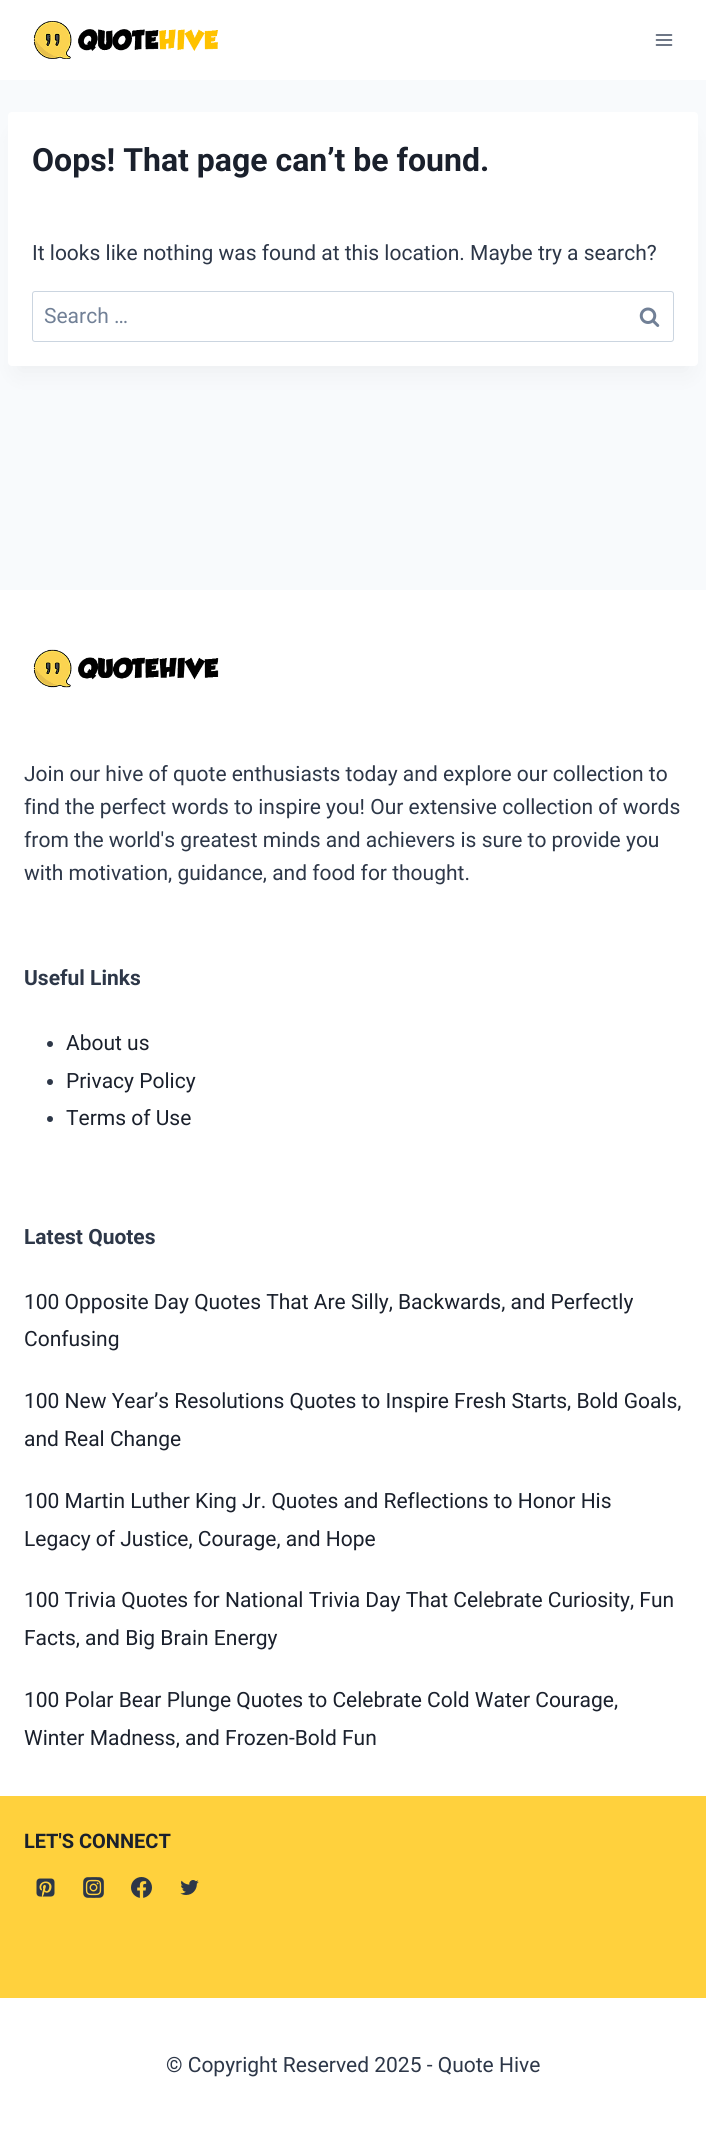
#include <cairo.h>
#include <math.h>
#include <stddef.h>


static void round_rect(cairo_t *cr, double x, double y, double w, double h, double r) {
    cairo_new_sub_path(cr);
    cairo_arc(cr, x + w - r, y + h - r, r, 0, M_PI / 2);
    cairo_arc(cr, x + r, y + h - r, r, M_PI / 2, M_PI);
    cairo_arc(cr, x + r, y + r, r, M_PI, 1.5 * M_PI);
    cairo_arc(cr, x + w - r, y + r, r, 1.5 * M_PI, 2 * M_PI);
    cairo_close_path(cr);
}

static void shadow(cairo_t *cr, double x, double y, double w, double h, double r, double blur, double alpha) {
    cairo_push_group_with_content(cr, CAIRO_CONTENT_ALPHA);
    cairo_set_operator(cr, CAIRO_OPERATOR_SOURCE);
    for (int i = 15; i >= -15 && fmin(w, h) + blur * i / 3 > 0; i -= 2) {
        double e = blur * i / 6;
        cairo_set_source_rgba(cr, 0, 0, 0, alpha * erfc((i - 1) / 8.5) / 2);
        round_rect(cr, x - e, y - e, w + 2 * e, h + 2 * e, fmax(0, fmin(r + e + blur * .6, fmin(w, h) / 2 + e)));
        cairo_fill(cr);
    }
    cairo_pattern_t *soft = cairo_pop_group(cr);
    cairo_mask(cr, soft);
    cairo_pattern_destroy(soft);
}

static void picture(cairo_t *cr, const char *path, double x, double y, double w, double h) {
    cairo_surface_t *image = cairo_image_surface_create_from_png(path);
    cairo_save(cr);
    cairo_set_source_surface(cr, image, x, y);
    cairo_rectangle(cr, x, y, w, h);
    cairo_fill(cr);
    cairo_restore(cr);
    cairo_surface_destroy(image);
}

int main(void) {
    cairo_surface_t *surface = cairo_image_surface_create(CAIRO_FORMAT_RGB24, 706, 2133);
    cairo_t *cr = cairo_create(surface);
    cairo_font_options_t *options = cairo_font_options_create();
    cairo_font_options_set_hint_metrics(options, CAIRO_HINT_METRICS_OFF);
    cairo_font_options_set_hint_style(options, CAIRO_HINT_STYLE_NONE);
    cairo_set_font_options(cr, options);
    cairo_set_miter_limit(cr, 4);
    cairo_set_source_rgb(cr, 0.969, 0.98, 0.988);
    cairo_paint(cr);
    cairo_set_source_rgb(cr, 1, 1, 1);
    cairo_rectangle(cr, 0, 0, 706, 80);
    cairo_fill(cr);
    picture(cr, "img1.png", 33, 21, 185, 38);
    picture(cr, "img2.png", 655, 34, 18, 12);
    cairo_set_source_rgb(cr, 0, 0, 0);
    shadow(cr, 18, 137, 670, 234, 0, 12.5, 0.05);
    cairo_set_source_rgb(cr, 1, 1, 1);
    round_rect(cr, 8, 112, 690, 254, 4);
    cairo_fill(cr);
    cairo_select_font_face(cr, "Roboto", CAIRO_FONT_SLANT_NORMAL, CAIRO_FONT_WEIGHT_BOLD);
    cairo_set_font_size(cr, 32);
    cairo_set_source_rgb(cr, 0.102, 0.125, 0.173);
    cairo_move_to(cr, 32, 171);
    cairo_show_text(cr, "Oops! That page can’t be found.");
    cairo_select_font_face(cr, "Roboto", CAIRO_FONT_SLANT_NORMAL, CAIRO_FONT_WEIGHT_NORMAL);
    cairo_set_font_size(cr, 21);
    cairo_set_source_rgb(cr, 0.176, 0.216, 0.282);
    cairo_move_to(cr, 32, 260);
    cairo_show_text(cr, "It looks like nothing was found at this location. Maybe try a search?");
    round_rect(cr, 32.5, 291.5, 641, 50, 2.5);
    cairo_set_source_rgb(cr, 0.796, 0.835, 0.878);
    cairo_set_line_width(cr, 1);
    cairo_stroke(cr);
    cairo_set_source_rgb(cr, 0.443, 0.502, 0.588);
    cairo_move_to(cr, 44, 323);
    cairo_show_text(cr, "Search …");
    picture(cr, "img3.png", 639, 307, 21, 20);
    cairo_set_source_rgb(cr, 1, 1, 1);
    cairo_rectangle(cr, 0, 590, 706, 1543);
    cairo_fill(cr);
    picture(cr, "img4.png", 33, 649, 186, 39);
    cairo_set_source_rgb(cr, 0.176, 0.216, 0.282);
    cairo_move_to(cr, 24, 781);
    cairo_show_text(cr, "Join our hive of quote enthusiasts today and explore our collection to");
    cairo_move_to(cr, 24, 814);
    cairo_show_text(cr, "find the perfect words to inspire you! Our extensive collection of words");
    cairo_move_to(cr, 24, 847);
    cairo_show_text(cr, "from the world's greatest minds and achievers is sure to provide you");
    cairo_move_to(cr, 24, 880);
    cairo_show_text(cr, "with motivation, guidance, and food for thought.");
    cairo_select_font_face(cr, "Roboto", CAIRO_FONT_SLANT_NORMAL, CAIRO_FONT_WEIGHT_BOLD);
    cairo_move_to(cr, 24, 985);
    cairo_show_text(cr, "Useful Links");
    cairo_new_path(cr);
    cairo_arc(cr, 50, 1044, 3, 0, 2 * M_PI);
    cairo_fill(cr);
    cairo_select_font_face(cr, "Roboto", CAIRO_FONT_SLANT_NORMAL, CAIRO_FONT_WEIGHT_NORMAL);
    cairo_set_source_rgb(cr, 0.102, 0.125, 0.173);
    cairo_move_to(cr, 66, 1050);
    cairo_show_text(cr, "About us");
    cairo_set_source_rgb(cr, 0.176, 0.216, 0.282);
    cairo_new_path(cr);
    cairo_arc(cr, 50, 1082, 3, 0, 2 * M_PI);
    cairo_fill(cr);
    cairo_set_source_rgb(cr, 0.102, 0.125, 0.173);
    cairo_move_to(cr, 66, 1088);
    cairo_show_text(cr, "Privacy Policy");
    cairo_set_source_rgb(cr, 0.176, 0.216, 0.282);
    cairo_new_path(cr);
    cairo_arc(cr, 50, 1119, 3, 0, 2 * M_PI);
    cairo_fill(cr);
    cairo_set_source_rgb(cr, 0.102, 0.125, 0.173);
    cairo_move_to(cr, 66, 1125);
    cairo_show_text(cr, "Terms of Use");
    cairo_select_font_face(cr, "Roboto", CAIRO_FONT_SLANT_NORMAL, CAIRO_FONT_WEIGHT_BOLD);
    cairo_set_source_rgb(cr, 0.176, 0.216, 0.282);
    cairo_move_to(cr, 24, 1244);
    cairo_show_text(cr, "Latest Quotes");
    cairo_select_font_face(cr, "Roboto", CAIRO_FONT_SLANT_NORMAL, CAIRO_FONT_WEIGHT_NORMAL);
    cairo_set_source_rgb(cr, 0.102, 0.125, 0.173);
    cairo_move_to(cr, 24, 1309);
    cairo_show_text(cr, "100 Opposite Day Quotes That Are Silly, Backwards, and Perfectly");
    cairo_move_to(cr, 24, 1346);
    cairo_show_text(cr, "Confusing");
    cairo_move_to(cr, 24, 1408);
    cairo_show_text(cr, "100 New Year’s Resolutions Quotes to Inspire Fresh Starts, Bold Goals,");
    cairo_move_to(cr, 24, 1446);
    cairo_show_text(cr, "and Real Change");
    cairo_move_to(cr, 24, 1508);
    cairo_show_text(cr, "100 Martin Luther King Jr. Quotes and Reflections to Honor His");
    cairo_move_to(cr, 24, 1546);
    cairo_show_text(cr, "Legacy of Justice, Courage, and Hope");
    cairo_move_to(cr, 24, 1607);
    cairo_show_text(cr, "100 Trivia Quotes for National Trivia Day That Celebrate Curiosity, Fun");
    cairo_move_to(cr, 24, 1645);
    cairo_show_text(cr, "Facts, and Big Brain Energy");
    cairo_move_to(cr, 24, 1707);
    cairo_show_text(cr, "100 Polar Bear Plunge Quotes to Celebrate Cold Water Courage,");
    cairo_move_to(cr, 24, 1745);
    cairo_show_text(cr, "Winter Madness, and Frozen-Bold Fun");
    cairo_set_source_rgb(cr, 1, 0.82, 0.239);
    cairo_rectangle(cr, 0, 1796, 706, 202);
    cairo_fill(cr);
    cairo_select_font_face(cr, "Roboto", CAIRO_FONT_SLANT_NORMAL, CAIRO_FONT_WEIGHT_BOLD);
    cairo_set_font_size(cr, 20);
    cairo_set_source_rgb(cr, 0.102, 0.125, 0.173);
    cairo_move_to(cr, 24, 1848);
    cairo_show_text(cr, "LET'S CONNECT");
    picture(cr, "img5.png", 36, 1878, 19, 19);
    picture(cr, "img6.png", 83, 1877, 21, 21);
    picture(cr, "img7.png", 131, 1877, 21, 21);
    picture(cr, "img8.png", 180, 1880, 19, 15);
    cairo_select_font_face(cr, "Roboto", CAIRO_FONT_SLANT_NORMAL, CAIRO_FONT_WEIGHT_NORMAL);
    cairo_set_font_size(cr, 21);
    cairo_set_source_rgb(cr, 0.176, 0.216, 0.282);
    cairo_move_to(cr, 166, 2072);
    cairo_show_text(cr, "© Copyright Reserved 2025 - Quote Hive");
    cairo_surface_write_to_png(surface, "page.png");
    cairo_font_options_destroy(options);
    cairo_destroy(cr);
    cairo_surface_destroy(surface);
    return 0;
}
